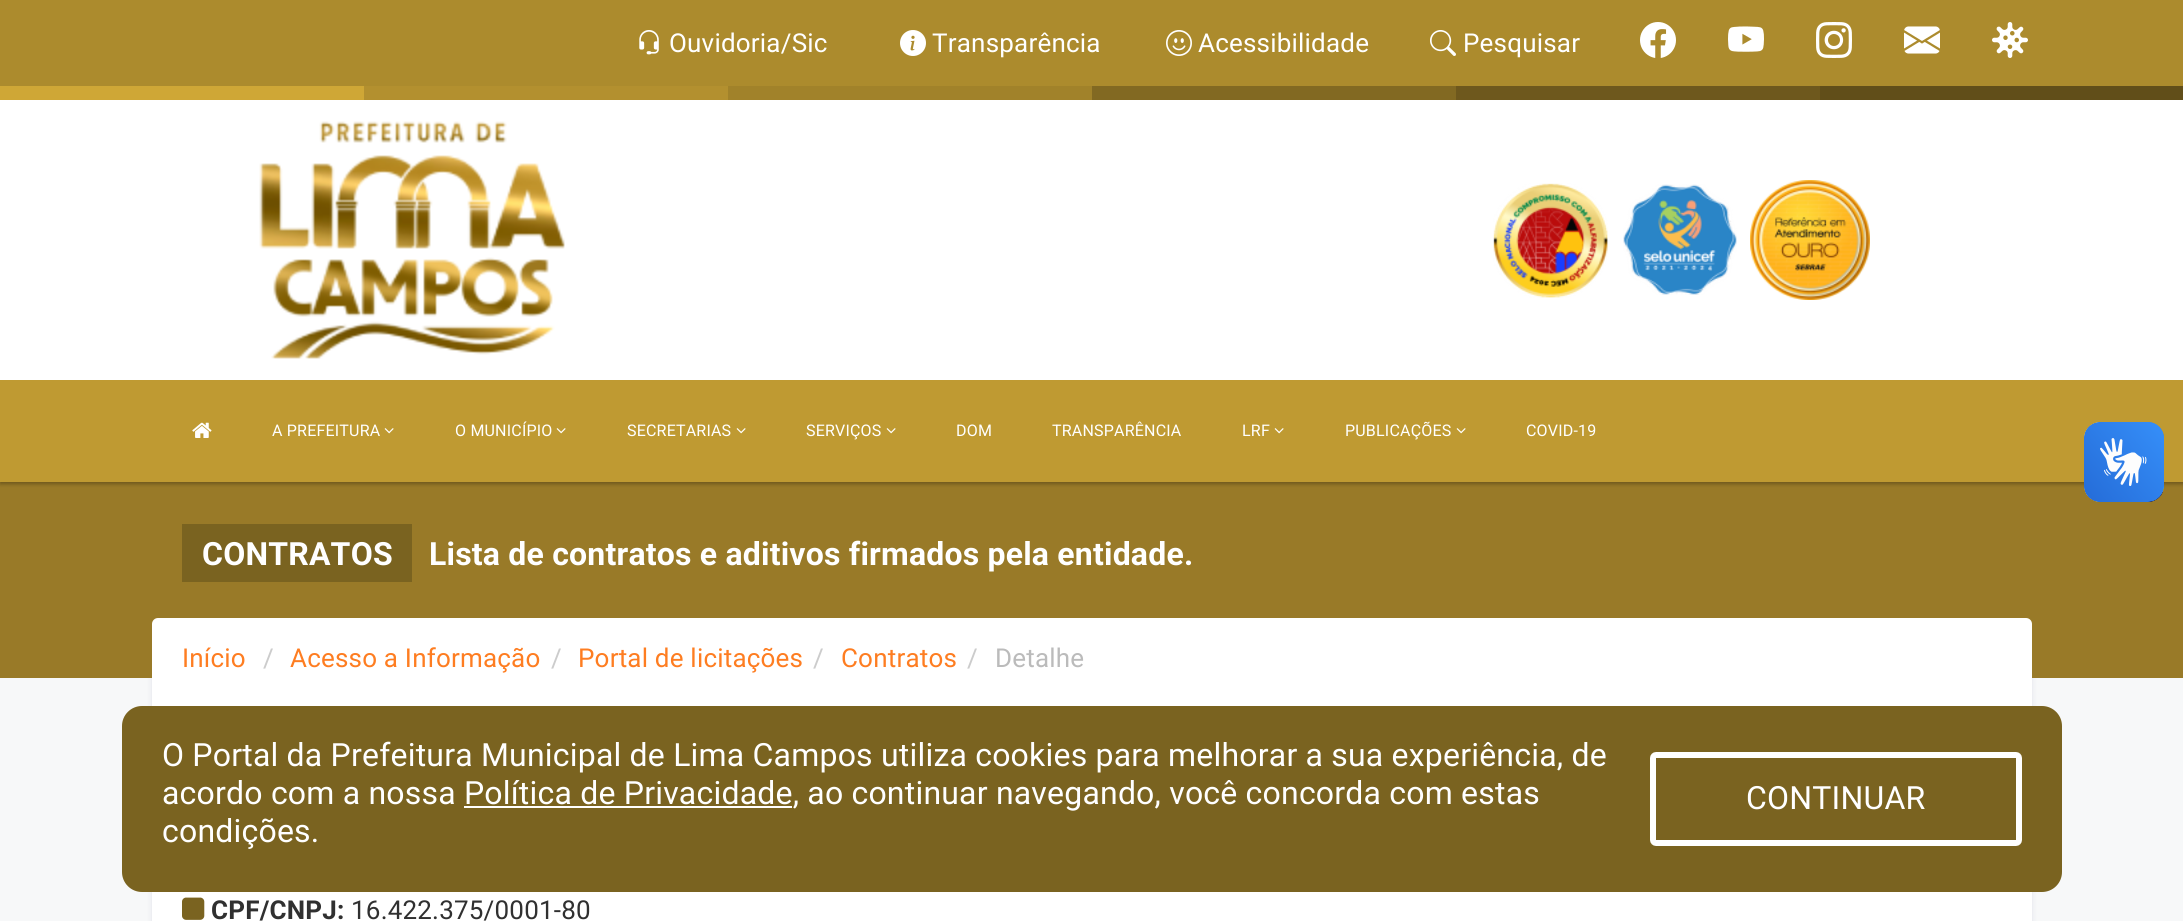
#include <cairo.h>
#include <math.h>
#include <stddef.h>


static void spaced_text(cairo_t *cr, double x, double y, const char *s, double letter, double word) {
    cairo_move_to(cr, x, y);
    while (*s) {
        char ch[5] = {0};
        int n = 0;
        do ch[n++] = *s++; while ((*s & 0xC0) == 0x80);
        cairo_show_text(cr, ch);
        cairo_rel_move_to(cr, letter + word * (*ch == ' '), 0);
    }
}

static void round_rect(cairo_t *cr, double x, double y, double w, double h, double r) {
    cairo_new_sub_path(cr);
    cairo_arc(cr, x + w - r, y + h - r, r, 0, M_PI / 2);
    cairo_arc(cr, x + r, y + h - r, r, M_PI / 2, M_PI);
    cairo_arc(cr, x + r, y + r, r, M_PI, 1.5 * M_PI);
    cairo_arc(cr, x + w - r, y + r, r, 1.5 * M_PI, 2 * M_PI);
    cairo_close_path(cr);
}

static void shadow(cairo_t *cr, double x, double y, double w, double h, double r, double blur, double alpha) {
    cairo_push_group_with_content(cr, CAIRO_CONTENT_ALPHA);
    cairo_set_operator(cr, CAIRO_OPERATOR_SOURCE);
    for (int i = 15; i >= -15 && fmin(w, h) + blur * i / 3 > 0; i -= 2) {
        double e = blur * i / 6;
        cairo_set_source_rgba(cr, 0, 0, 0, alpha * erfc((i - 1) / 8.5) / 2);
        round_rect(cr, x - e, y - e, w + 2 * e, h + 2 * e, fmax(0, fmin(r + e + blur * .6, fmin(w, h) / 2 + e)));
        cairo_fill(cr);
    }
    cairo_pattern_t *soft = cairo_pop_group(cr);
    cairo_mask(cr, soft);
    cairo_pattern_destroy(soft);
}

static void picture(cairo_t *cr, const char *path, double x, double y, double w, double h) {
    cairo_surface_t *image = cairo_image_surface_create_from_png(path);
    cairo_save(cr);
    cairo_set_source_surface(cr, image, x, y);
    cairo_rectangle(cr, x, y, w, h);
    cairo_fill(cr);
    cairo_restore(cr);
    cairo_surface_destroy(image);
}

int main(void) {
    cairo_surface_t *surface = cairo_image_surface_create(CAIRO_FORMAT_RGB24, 2183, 921);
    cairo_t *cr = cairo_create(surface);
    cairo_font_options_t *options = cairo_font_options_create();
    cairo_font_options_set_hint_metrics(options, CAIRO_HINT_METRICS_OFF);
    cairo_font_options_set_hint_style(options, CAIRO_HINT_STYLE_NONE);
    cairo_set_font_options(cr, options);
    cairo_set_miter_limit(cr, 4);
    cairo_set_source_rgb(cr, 0.965, 0.969, 0.973);
    cairo_paint(cr);
    cairo_set_source_rgb(cr, 0.012, 0, 0.278);
    shadow(cr, 152, 620, 1880, 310, 0, 3, 0.09);
    cairo_set_source_rgb(cr, 0.6, 0.478, 0.157);
    cairo_rectangle(cr, 0, 482, 2183, 196);
    cairo_fill(cr);
    cairo_set_source_rgb(cr, 0, 0, 0);
    shadow(cr, 0, 2, 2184, 482, 0, 2, 0.3);
    cairo_set_source_rgb(cr, 1, 1, 1);
    cairo_rectangle(cr, 0, 100, 2183, 280);
    cairo_fill(cr);
    cairo_set_source_rgb(cr, 0.675, 0.545, 0.176);
    cairo_rectangle(cr, 0, 0, 2183, 86);
    cairo_fill(cr);
    picture(cr, "img1.png", 639, 30, 20, 25);
    cairo_select_font_face(cr, "Roboto", CAIRO_FONT_SLANT_NORMAL, CAIRO_FONT_WEIGHT_NORMAL);
    cairo_set_font_size(cr, 26);
    cairo_set_source_rgb(cr, 1, 1, 1);
    spaced_text(cr, 669, 52, "Ouvidoria/Sic", 0.2, 0);
    picture(cr, "img2.png", 900, 30, 26, 26);
    spaced_text(cr, 932, 52, "Transparência", 0.2, 0);
    picture(cr, "img3.png", 1166, 30, 26, 26);
    spaced_text(cr, 1198, 52, "Acessibilidade", 0.2, 0);
    picture(cr, "img4.png", 1430, 30, 26, 26);
    spaced_text(cr, 1463, 52, "Pesquisar", 0.2, 0);
    picture(cr, "img5.png", 1640, 22, 36, 36);
    picture(cr, "img6.png", 1728, 26, 36, 26);
    picture(cr, "img7.png", 1816, 22, 36, 36);
    picture(cr, "img8.png", 1904, 26, 36, 28);
    picture(cr, "img9.png", 1992, 22, 36, 36);
    cairo_set_source_rgb(cr, 0.812, 0.655, 0.212);
    cairo_rectangle(cr, 0, 86, 364, 14);
    cairo_fill(cr);
    cairo_set_source_rgb(cr, 0.702, 0.565, 0.184);
    cairo_rectangle(cr, 364, 86, 364, 14);
    cairo_fill(cr);
    cairo_set_source_rgb(cr, 0.631, 0.51, 0.165);
    cairo_rectangle(cr, 728, 86, 364, 14);
    cairo_fill(cr);
    cairo_set_source_rgb(cr, 0.51, 0.412, 0.133);
    cairo_rectangle(cr, 1092, 86, 364, 14);
    cairo_fill(cr);
    cairo_set_source_rgb(cr, 0.431, 0.345, 0.114);
    cairo_rectangle(cr, 1456, 86, 364, 14);
    cairo_fill(cr);
    cairo_set_source_rgb(cr, 0.38, 0.306, 0.098);
    cairo_rectangle(cr, 1820, 86, 363, 14);
    cairo_fill(cr);
    picture(cr, "img10.png", 259, 121, 306, 238);
    picture(cr, "img11.png", 1493, 183, 115, 115);
    picture(cr, "img12.png", 1623, 184, 114, 111);
    picture(cr, "img13.png", 1750, 180, 120, 120);
    cairo_set_source_rgb(cr, 0.749, 0.604, 0.196);
    cairo_rectangle(cr, 0, 380, 2183, 102);
    cairo_fill(cr);
    picture(cr, "img14.png", 192, 422, 20, 16);
    cairo_set_font_size(cr, 16);
    cairo_set_source_rgb(cr, 1, 1, 1);
    spaced_text(cr, 272, 436, "A PREFEITURA", 0.2, 0);
    picture(cr, "img15.png", 384, 428, 10, 6);
    spaced_text(cr, 455, 436, "O MUNICÍPIO", 0.2, 0);
    picture(cr, "img15.png", 556, 428, 10, 6);
    spaced_text(cr, 627, 436, "SECRETARIAS", 0.2, 0);
    picture(cr, "img15.png", 736, 428, 10, 6);
    spaced_text(cr, 806, 436, "SERVIÇOS", 0.2, 0);
    picture(cr, "img15.png", 886, 428, 10, 6);
    spaced_text(cr, 956, 436, "DOM", 0.2, 0);
    spaced_text(cr, 1052, 436, "TRANSPARÊNCIA", 0.2, 0);
    spaced_text(cr, 1242, 436, "LRF", 0.2, 0);
    picture(cr, "img15.png", 1274, 428, 10, 6);
    spaced_text(cr, 1345, 436, "PUBLICAÇÕES", 0.2, 0);
    picture(cr, "img15.png", 1456, 428, 10, 6);
    spaced_text(cr, 1526, 436, "COVID-19", 0.2, 0);
    picture(cr, "img16.png", 2084, 422, 80, 80);
    picture(cr, "img17.png", 2084, 422, 80, 80);
    cairo_set_source_rgb(cr, 0.478, 0.388, 0.125);
    cairo_rectangle(cr, 182, 524, 230, 58);
    cairo_fill(cr);
    cairo_select_font_face(cr, "Roboto", CAIRO_FONT_SLANT_NORMAL, CAIRO_FONT_WEIGHT_BOLD);
    cairo_set_font_size(cr, 32);
    cairo_set_source_rgb(cr, 1, 1, 1);
    spaced_text(cr, 202, 565, "CONTRATOS", 0.2, 0);
    spaced_text(cr, 429, 565, "Lista de contratos e aditivos firmados pela entidade.", 0.2, 0);
    cairo_rectangle(cr, 152, 692, 1880, 229);
    cairo_fill(cr);
    round_rect(cr, 152, 618, 1880, 80, 6);
    cairo_fill(cr);
    cairo_select_font_face(cr, "Roboto", CAIRO_FONT_SLANT_NORMAL, CAIRO_FONT_WEIGHT_NORMAL);
    cairo_set_font_size(cr, 26);
    cairo_set_source_rgb(cr, 0.996, 0.49, 0.129);
    spaced_text(cr, 182, 667, "Início", 0.2, 0);
    cairo_set_source_rgb(cr, 0.8, 0.8, 0.8);
    spaced_text(cr, 263, 667, "/", 0.2, 0);
    cairo_set_source_rgb(cr, 0.996, 0.49, 0.129);
    spaced_text(cr, 290, 667, "Acesso a Informação", 0.2, 0);
    cairo_set_source_rgb(cr, 0.8, 0.8, 0.8);
    spaced_text(cr, 551, 667, "/", 0.2, 0);
    cairo_set_source_rgb(cr, 0.996, 0.49, 0.129);
    spaced_text(cr, 578, 667, "Portal de licitações", 0.2, 0);
    cairo_set_source_rgb(cr, 0.8, 0.8, 0.8);
    spaced_text(cr, 813, 667, "/", 0.2, 0);
    cairo_set_source_rgb(cr, 0.996, 0.49, 0.129);
    spaced_text(cr, 841, 667, "Contratos", 0.2, 0);
    cairo_set_source_rgb(cr, 0.8, 0.8, 0.8);
    spaced_text(cr, 967, 667, "/", 0.2, 0);
    cairo_set_source_rgb(cr, 0.733, 0.733, 0.733);
    spaced_text(cr, 995, 667, "Detalhe", 0.2, 0);
    picture(cr, "img18.png", 182, 897, 23, 23);
    cairo_select_font_face(cr, "Roboto", CAIRO_FONT_SLANT_NORMAL, CAIRO_FONT_WEIGHT_BOLD);
    cairo_set_source_rgb(cr, 0.188, 0.188, 0.188);
    spaced_text(cr, 211, 919, "CPF/CNPJ:", 0.2, 0);
    cairo_select_font_face(cr, "Roboto", CAIRO_FONT_SLANT_NORMAL, CAIRO_FONT_WEIGHT_NORMAL);
    spaced_text(cr, 351, 919, "16.422.375/0001-80", 0.2, 0);
    cairo_set_source_rgb(cr, 0.478, 0.388, 0.125);
    round_rect(cr, 122, 706, 1940, 186, 20);
    cairo_fill(cr);
    cairo_set_font_size(cr, 32);
    cairo_set_source_rgb(cr, 1, 1, 1);
    spaced_text(cr, 162, 766, "O Portal da Prefeitura Municipal de Lima Campos utiliza cookies para melhorar a sua experiência, de", 0.2, 0);
    spaced_text(cr, 162, 804, "acordo com a nossa Política de Privacidade, ao continuar navegando, você concorda com estas", 0.2, 0);
    cairo_rectangle(cr, 464, 806, 328, 2);
    cairo_fill(cr);
    spaced_text(cr, 162, 842, "condições.", 0.2, 0);
    round_rect(cr, 1653, 755, 366, 88, 3);
    cairo_set_line_width(cr, 6);
    cairo_stroke(cr);
    spaced_text(cr, 1746, 809, "CONTINUAR", 0.2, 0);
    cairo_surface_write_to_png(surface, "page.png");
    cairo_font_options_destroy(options);
    cairo_destroy(cr);
    cairo_surface_destroy(surface);
    return 0;
}
